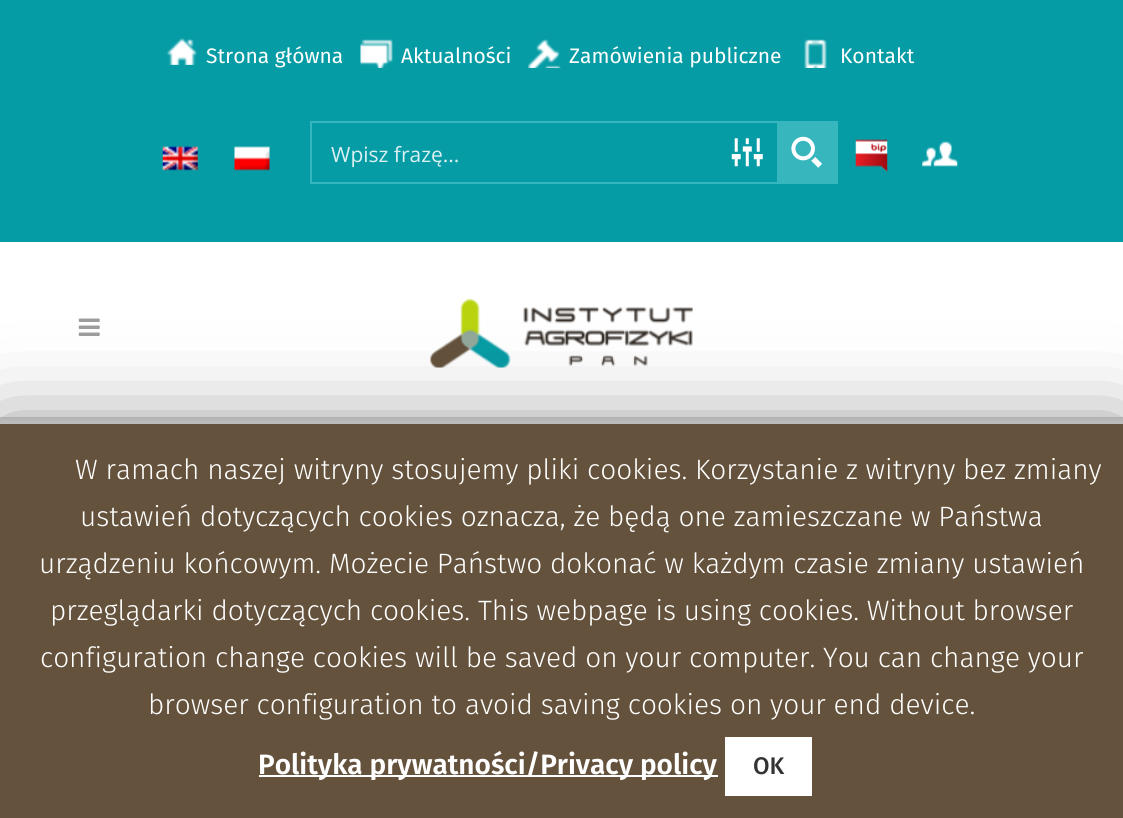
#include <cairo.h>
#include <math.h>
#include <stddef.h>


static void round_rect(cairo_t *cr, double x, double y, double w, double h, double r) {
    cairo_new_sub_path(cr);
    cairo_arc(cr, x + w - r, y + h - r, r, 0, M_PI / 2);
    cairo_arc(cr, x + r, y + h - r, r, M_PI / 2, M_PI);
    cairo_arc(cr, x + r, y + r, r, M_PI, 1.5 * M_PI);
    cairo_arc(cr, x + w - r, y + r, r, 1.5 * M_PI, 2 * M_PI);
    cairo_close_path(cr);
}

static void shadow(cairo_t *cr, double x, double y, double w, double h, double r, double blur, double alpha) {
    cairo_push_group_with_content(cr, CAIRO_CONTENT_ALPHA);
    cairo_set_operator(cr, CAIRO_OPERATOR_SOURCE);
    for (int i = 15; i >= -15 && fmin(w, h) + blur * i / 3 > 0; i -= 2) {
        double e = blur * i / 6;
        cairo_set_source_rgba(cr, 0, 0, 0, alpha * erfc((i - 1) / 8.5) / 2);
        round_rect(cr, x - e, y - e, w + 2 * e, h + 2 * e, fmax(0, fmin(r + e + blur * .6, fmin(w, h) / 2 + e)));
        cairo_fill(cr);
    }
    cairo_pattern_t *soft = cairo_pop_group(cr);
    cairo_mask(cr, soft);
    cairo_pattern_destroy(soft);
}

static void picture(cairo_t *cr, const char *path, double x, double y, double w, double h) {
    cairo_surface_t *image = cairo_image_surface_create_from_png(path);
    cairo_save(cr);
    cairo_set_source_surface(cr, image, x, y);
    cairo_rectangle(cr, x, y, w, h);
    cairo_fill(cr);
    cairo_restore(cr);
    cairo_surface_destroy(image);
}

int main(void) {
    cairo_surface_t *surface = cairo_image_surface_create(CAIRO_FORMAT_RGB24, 1123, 818);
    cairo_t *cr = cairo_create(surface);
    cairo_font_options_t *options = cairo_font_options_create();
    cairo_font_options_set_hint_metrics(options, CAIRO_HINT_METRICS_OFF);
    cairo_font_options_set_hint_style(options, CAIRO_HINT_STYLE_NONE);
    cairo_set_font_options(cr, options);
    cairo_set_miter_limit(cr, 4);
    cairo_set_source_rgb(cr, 0.922, 0.922, 0.922);
    cairo_paint(cr);
    cairo_set_source_rgb(cr, 0, 0, 0);
    shadow(cr, 0, 4, 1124, 416, 0, 4.5, 0.1);
    cairo_set_source_rgb(cr, 0.027, 0.612, 0.647);
    cairo_rectangle(cr, 0, 0, 1123, 242);
    cairo_fill(cr);
    picture(cr, "img1.png", 167, 38, 30, 27);
    cairo_select_font_face(cr, "Fira Sans", CAIRO_FONT_SLANT_NORMAL, CAIRO_FONT_WEIGHT_NORMAL);
    cairo_set_font_size(cr, 21);
    cairo_set_source_rgb(cr, 1, 1, 1);
    cairo_move_to(cr, 206, 63);
    cairo_show_text(cr, "Strona główna");
    picture(cr, "img2.png", 360, 39, 33, 29);
    cairo_move_to(cr, 401, 63);
    cairo_show_text(cr, "Aktualności");
    picture(cr, "img3.png", 528, 39, 33, 29);
    cairo_move_to(cr, 569, 63);
    cairo_show_text(cr, "Zamówienia publiczne");
    picture(cr, "img4.png", 804, 39, 23, 29);
    cairo_move_to(cr, 840, 63);
    cairo_show_text(cr, "Kontakt");
    picture(cr, "img5.png", 162, 146, 36, 25);
    picture(cr, "img6.png", 234, 146, 36, 25);
    cairo_rectangle(cr, 311, 122, 526, 61);
    cairo_set_source_rgb(cr, 0.216, 0.714, 0.745);
    cairo_stroke(cr);
    cairo_select_font_face(cr, "Open Sans", CAIRO_FONT_SLANT_NORMAL, CAIRO_FONT_WEIGHT_NORMAL);
    cairo_set_source_rgb(cr, 0.855, 0.941, 0.949);
    cairo_move_to(cr, 331, 162);
    cairo_show_text(cr, "Wpisz frazę...");
    picture(cr, "img7.png", 731, 138, 32, 29);
    cairo_set_source_rgb(cr, 0.216, 0.714, 0.745);
    cairo_rectangle(cr, 777, 123, 59, 59);
    cairo_fill(cr);
    picture(cr, "img8.png", 791, 136, 31, 32);
    picture(cr, "img9.png", 855, 139, 33, 33);
    picture(cr, "img10.png", 922, 141, 36, 26);
    cairo_set_source_rgb(cr, 1, 1, 1);
    cairo_rectangle(cr, 0, 242, 1123, 175);
    cairo_fill(cr);
    picture(cr, "img11.png", 78, 318, 22, 18);
    picture(cr, "img12.png", 430, 298, 263, 70);
    cairo_set_source_rgb(cr, 0, 0, 0);
    shadow(cr, 0, 432, 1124, 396, 0, 44, 0.5);
    cairo_set_source_rgb(cr, 0.392, 0.322, 0.235);
    cairo_rectangle(cr, 0, 424, 1123, 394);
    cairo_fill(cr);
    cairo_select_font_face(cr, "Fira Sans Light", CAIRO_FONT_SLANT_NORMAL, CAIRO_FONT_WEIGHT_NORMAL);
    cairo_set_font_size(cr, 28);
    cairo_set_source_rgb(cr, 1, 1, 1);
    cairo_move_to(cr, 75, 479);
    cairo_show_text(cr, "W ramach naszej witryny stosujemy pliki cookies. Korzystanie z witryny bez zmiany");
    cairo_move_to(cr, 80, 526);
    cairo_show_text(cr, "ustawień dotyczących cookies oznacza, że będą one zamieszczane w Państwa");
    cairo_move_to(cr, 39, 573);
    cairo_show_text(cr, "urządzeniu końcowym. Możecie Państwo dokonać w każdym czasie zmiany ustawień");
    cairo_move_to(cr, 50, 620);
    cairo_show_text(cr, "przeglądarki dotyczących cookies. This webpage is using cookies. Without browser");
    cairo_move_to(cr, 40, 667);
    cairo_show_text(cr, "configuration change cookies will be saved on your computer. You can change your");
    cairo_move_to(cr, 148, 714);
    cairo_show_text(cr, "browser configuration to avoid saving cookies on your end device.");
    cairo_rectangle(cr, 259, 775, 459, 2);
    cairo_fill(cr);
    cairo_select_font_face(cr, "Fira Sans SemiBold", CAIRO_FONT_SLANT_NORMAL, CAIRO_FONT_WEIGHT_NORMAL);
    cairo_move_to(cr, 258, 774);
    cairo_show_text(cr, "Polityka prywatności/Privacy policy");
    cairo_rectangle(cr, 725, 737, 87, 59);
    cairo_fill(cr);
    cairo_select_font_face(cr, "Fira Sans Medium", CAIRO_FONT_SLANT_NORMAL, CAIRO_FONT_WEIGHT_NORMAL);
    cairo_set_font_size(cr, 24);
    cairo_set_source_rgb(cr, 0.2, 0.2, 0.2);
    cairo_move_to(cr, 753, 774);
    cairo_show_text(cr, "OK");
    cairo_surface_write_to_png(surface, "page.png");
    cairo_font_options_destroy(options);
    cairo_destroy(cr);
    cairo_surface_destroy(surface);
    return 0;
}
